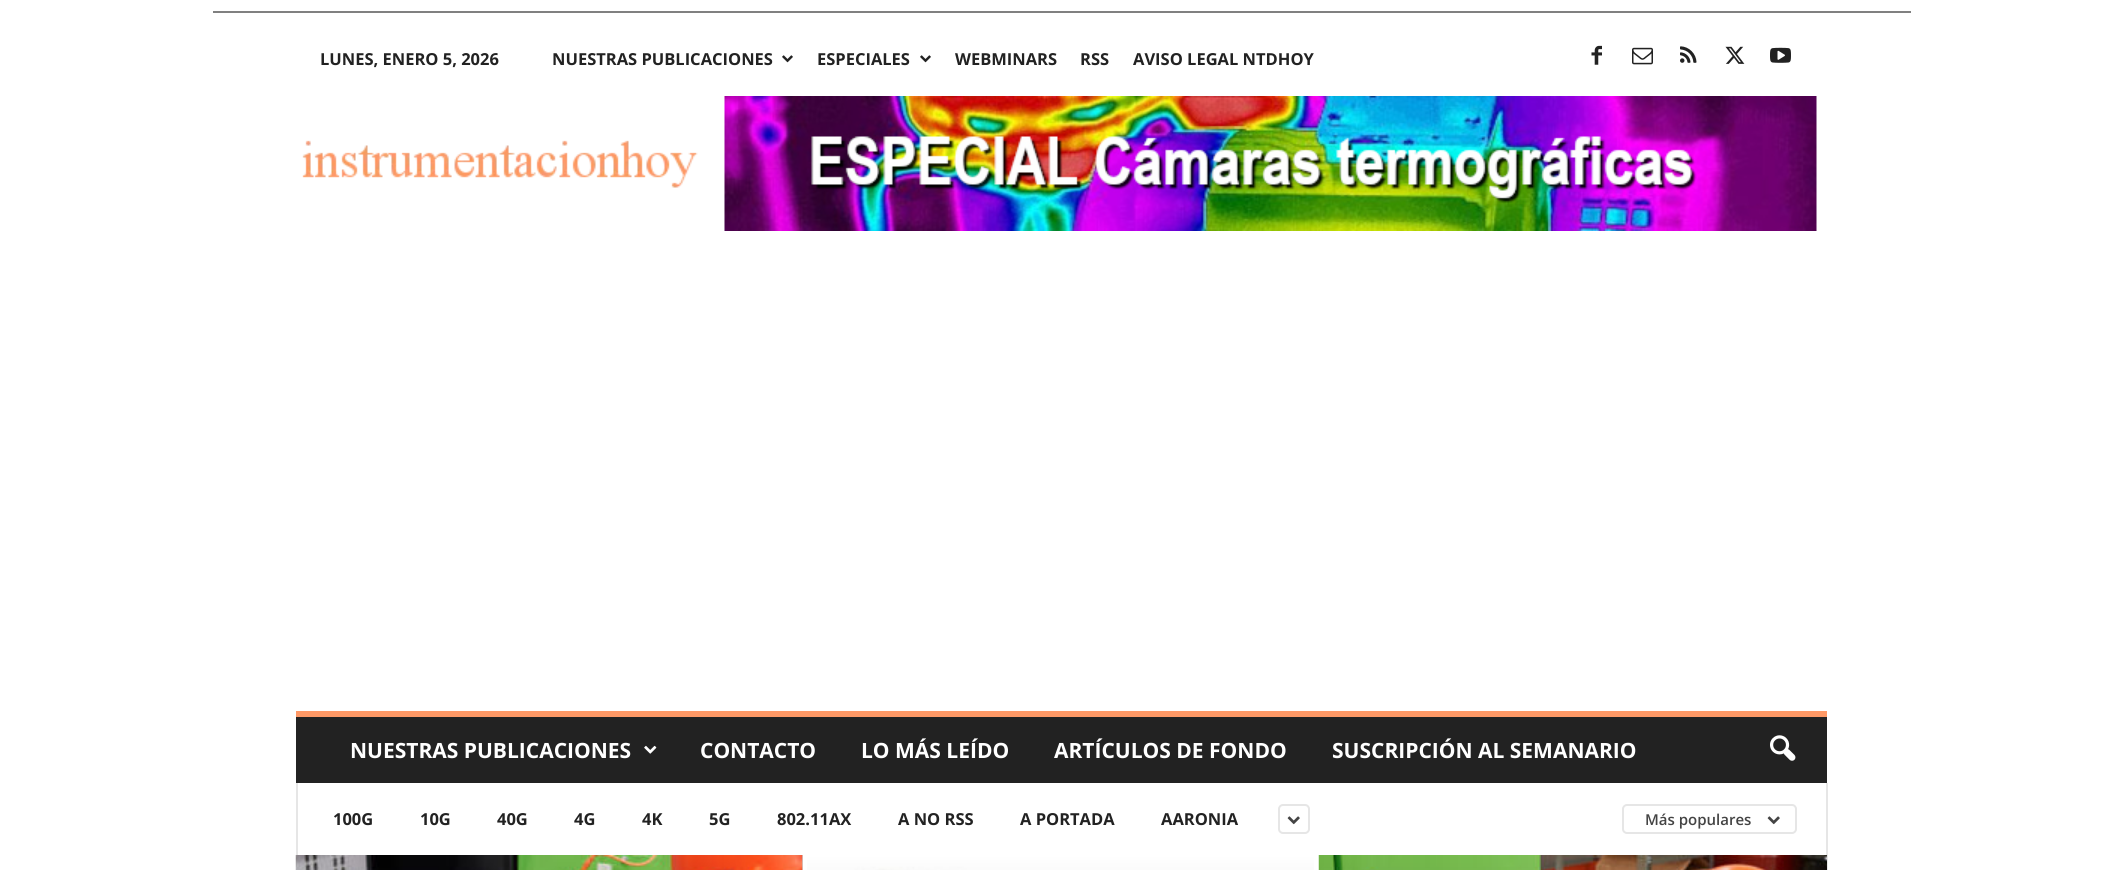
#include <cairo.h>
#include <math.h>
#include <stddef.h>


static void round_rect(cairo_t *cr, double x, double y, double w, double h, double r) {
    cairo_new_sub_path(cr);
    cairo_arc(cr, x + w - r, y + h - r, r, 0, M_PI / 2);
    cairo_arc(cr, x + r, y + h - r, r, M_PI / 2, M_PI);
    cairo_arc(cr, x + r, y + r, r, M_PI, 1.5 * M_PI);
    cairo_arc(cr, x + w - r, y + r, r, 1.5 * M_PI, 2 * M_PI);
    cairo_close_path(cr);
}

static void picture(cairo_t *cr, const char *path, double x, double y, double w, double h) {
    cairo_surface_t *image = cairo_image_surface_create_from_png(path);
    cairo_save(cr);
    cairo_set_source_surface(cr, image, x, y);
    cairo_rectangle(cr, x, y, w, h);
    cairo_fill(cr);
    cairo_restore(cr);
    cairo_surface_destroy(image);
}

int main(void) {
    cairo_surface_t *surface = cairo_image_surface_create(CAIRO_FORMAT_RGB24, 2122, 870);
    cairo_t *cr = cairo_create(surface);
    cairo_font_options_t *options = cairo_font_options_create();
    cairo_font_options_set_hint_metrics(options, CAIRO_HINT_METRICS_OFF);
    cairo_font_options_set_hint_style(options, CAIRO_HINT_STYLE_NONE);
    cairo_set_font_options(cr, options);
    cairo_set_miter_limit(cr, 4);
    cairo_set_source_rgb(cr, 1, 1, 1);
    cairo_paint(cr);
    cairo_set_source_rgb(cr, 0.502, 0.502, 0.502);
    cairo_rectangle(cr, 213, 11, 1698, 2);
    cairo_fill(cr);
    cairo_select_font_face(cr, "Open Sans", CAIRO_FONT_SLANT_NORMAL, CAIRO_FONT_WEIGHT_BOLD);
    cairo_set_font_size(cr, 16.5);
    cairo_set_source_rgb(cr, 0.133, 0.133, 0.133);
    cairo_move_to(cr, 320, 65);
    cairo_show_text(cr, "LUNES, ENERO 5, 2026");
    cairo_move_to(cr, 552, 65);
    cairo_show_text(cr, "NUESTRAS PUBLICACIONES");
    picture(cr, "img1.png", 782, 55, 11, 8);
    cairo_move_to(cr, 817, 65);
    cairo_show_text(cr, "ESPECIALES");
    picture(cr, "img1.png", 920, 55, 11, 8);
    cairo_move_to(cr, 955, 65);
    cairo_show_text(cr, "WEBMINARS");
    cairo_move_to(cr, 1080, 65);
    cairo_show_text(cr, "RSS");
    cairo_move_to(cr, 1133, 65);
    cairo_show_text(cr, "AVISO LEGAL NTDHOY");
    picture(cr, "img2.png", 1591, 45, 11, 20);
    picture(cr, "img3.png", 1632, 47, 21, 18);
    picture(cr, "img4.png", 1680, 46, 17, 17);
    picture(cr, "img5.png", 1725, 46, 20, 18);
    picture(cr, "img6.png", 1770, 47, 21, 16);
    picture(cr, "img7.png", 302, 140, 396, 48);
    picture(cr, "img8.png", 724, 96, 1093, 135);
    cairo_rectangle(cr, 296, 717, 1531, 66);
    cairo_fill(cr);
    cairo_set_source_rgb(cr, 1, 0.6, 0.4);
    cairo_rectangle(cr, 296, 711, 1531, 6);
    cairo_fill(cr);
    cairo_set_font_size(cr, 21);
    cairo_set_source_rgb(cr, 1, 1, 1);
    cairo_move_to(cr, 350, 758);
    cairo_show_text(cr, "NUESTRAS PUBLICACIONES");
    picture(cr, "img9.png", 644, 745, 13, 9);
    cairo_move_to(cr, 700, 758);
    cairo_show_text(cr, "CONTACTO");
    cairo_move_to(cr, 861, 758);
    cairo_show_text(cr, "LO MÁS LEÍDO");
    cairo_move_to(cr, 1054, 758);
    cairo_show_text(cr, "ARTÍCULOS DE FONDO");
    cairo_move_to(cr, 1332, 758);
    cairo_show_text(cr, "SUSCRIPCIÓN AL SEMANARIO");
    picture(cr, "img10.png", 1770, 735, 26, 26);
    cairo_set_source_rgb(cr, 0.902, 0.902, 0.902);
    cairo_rectangle(cr, 296, 783, 2, 72);
    cairo_fill(cr);
    cairo_set_font_size(cr, 16.5);
    cairo_set_source_rgb(cr, 0.133, 0.133, 0.133);
    cairo_move_to(cr, 333, 825);
    cairo_show_text(cr, "100G");
    cairo_move_to(cr, 420, 825);
    cairo_show_text(cr, "10G");
    cairo_move_to(cr, 497, 825);
    cairo_show_text(cr, "40G");
    cairo_move_to(cr, 574, 825);
    cairo_show_text(cr, "4G");
    cairo_move_to(cr, 642, 825);
    cairo_show_text(cr, "4K");
    cairo_move_to(cr, 709, 825);
    cairo_show_text(cr, "5G");
    cairo_move_to(cr, 777, 825);
    cairo_show_text(cr, "802.11AX");
    cairo_move_to(cr, 898, 825);
    cairo_show_text(cr, "A NO RSS");
    cairo_move_to(cr, 1020, 825);
    cairo_show_text(cr, "A PORTADA");
    cairo_move_to(cr, 1161, 825);
    cairo_show_text(cr, "AARONIA");
    round_rect(cr, 1279, 805, 30, 28, 4);
    cairo_set_source_rgb(cr, 0.902, 0.902, 0.902);
    cairo_stroke(cr);
    picture(cr, "img11.png", 1287, 816, 13, 9);
    round_rect(cr, 1623, 805, 173, 28, 4);
    cairo_stroke(cr);
    cairo_select_font_face(cr, "Open Sans SemiBold", CAIRO_FONT_SLANT_NORMAL, CAIRO_FONT_WEIGHT_NORMAL);
    cairo_set_font_size(cr, 15);
    cairo_set_source_rgb(cr, 0.267, 0.267, 0.267);
    cairo_move_to(cr, 1645, 825);
    cairo_show_text(cr, "Más populares");
    picture(cr, "img11.png", 1767, 816, 13, 9);
    cairo_set_source_rgb(cr, 0.902, 0.902, 0.902);
    cairo_rectangle(cr, 1826, 783, 2, 72);
    cairo_fill(cr);
    cairo_set_source_rgb(cr, 0.8, 0.8, 0.8);
    cairo_rectangle(cr, 802, 855, 1, 15);
    cairo_fill(cr);
    picture(cr, "img12.png", 295, 855, 508, 15);
    picture(cr, "img13.png", 807, 855, 507, 15);
    picture(cr, "img14.png", 1318, 855, 509, 15);
    cairo_set_source_rgb(cr, 0.902, 0.902, 0.902);
    cairo_rectangle(cr, 1827, 855, 1, 15);
    cairo_fill(cr);
    cairo_surface_write_to_png(surface, "page.png");
    cairo_font_options_destroy(options);
    cairo_destroy(cr);
    cairo_surface_destroy(surface);
    return 0;
}
